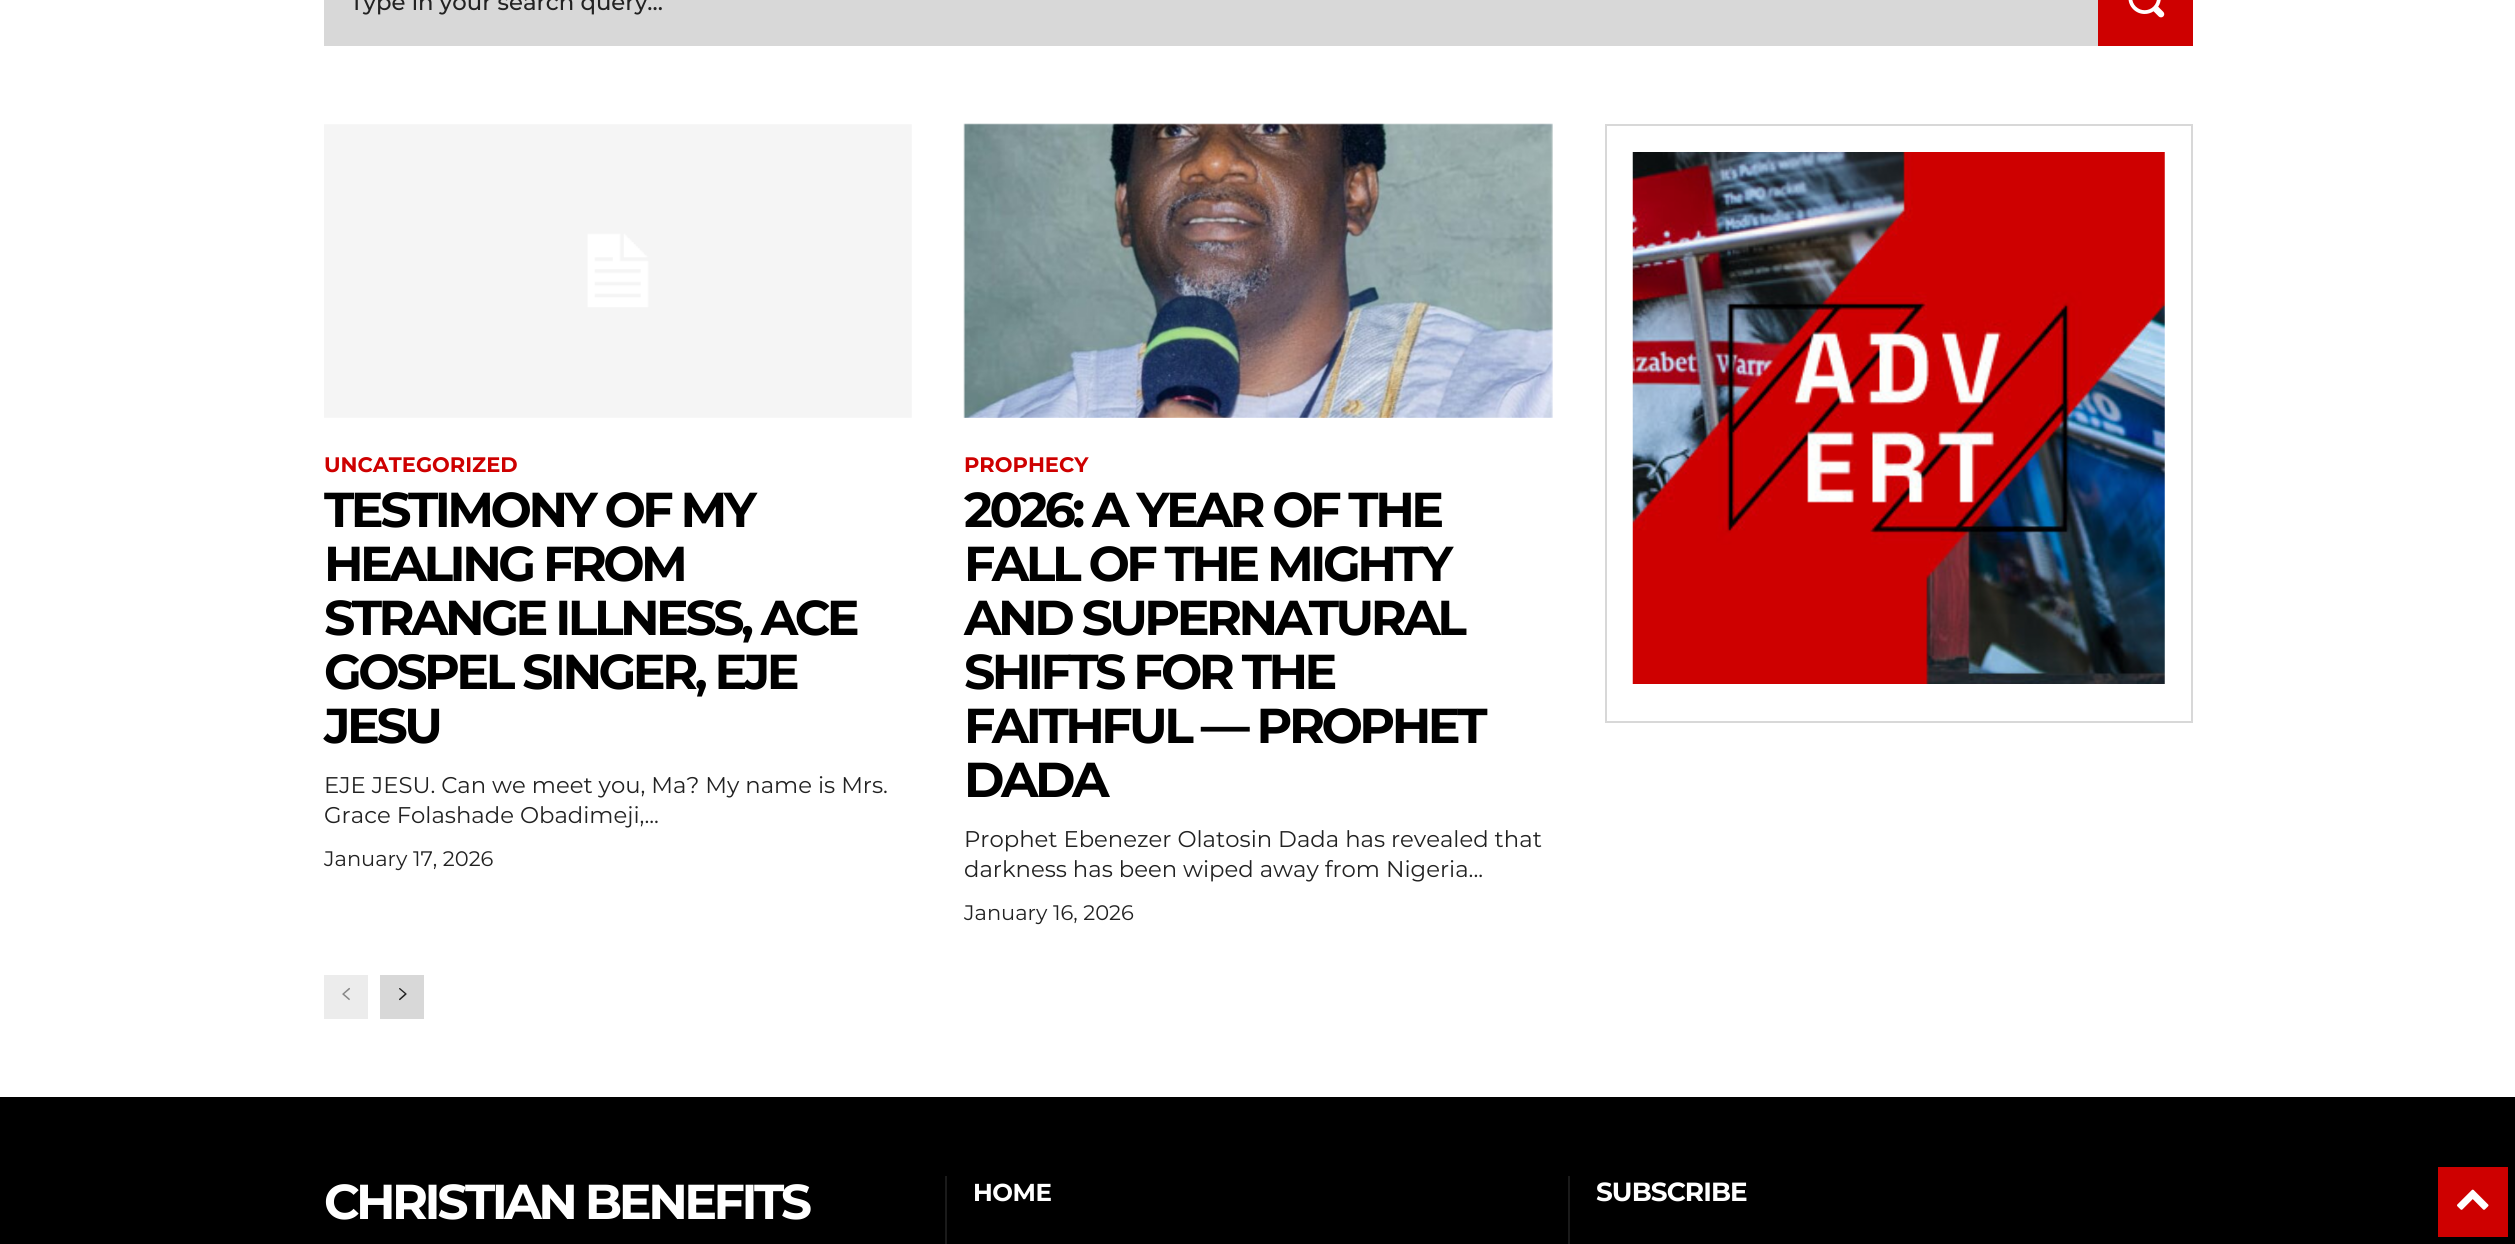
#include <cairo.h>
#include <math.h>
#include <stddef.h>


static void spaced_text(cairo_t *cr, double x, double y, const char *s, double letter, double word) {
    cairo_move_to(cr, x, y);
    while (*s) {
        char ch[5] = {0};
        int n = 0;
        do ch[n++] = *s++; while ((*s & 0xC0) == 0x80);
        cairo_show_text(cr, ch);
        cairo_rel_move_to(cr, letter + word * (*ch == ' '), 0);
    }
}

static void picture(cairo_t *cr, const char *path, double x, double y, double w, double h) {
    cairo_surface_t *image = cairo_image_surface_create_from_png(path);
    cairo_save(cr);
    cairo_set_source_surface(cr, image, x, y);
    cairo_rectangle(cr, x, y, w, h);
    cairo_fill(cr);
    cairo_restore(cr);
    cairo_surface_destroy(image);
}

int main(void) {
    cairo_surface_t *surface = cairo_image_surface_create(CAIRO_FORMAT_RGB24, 2515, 1244);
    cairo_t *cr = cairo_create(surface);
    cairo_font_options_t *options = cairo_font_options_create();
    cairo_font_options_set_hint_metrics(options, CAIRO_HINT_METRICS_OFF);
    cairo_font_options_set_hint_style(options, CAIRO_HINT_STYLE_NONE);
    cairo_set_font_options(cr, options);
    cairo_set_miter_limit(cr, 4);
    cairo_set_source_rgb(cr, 1, 1, 1);
    cairo_paint(cr);
    cairo_set_source_rgb(cr, 0.847, 0.847, 0.847);
    cairo_rectangle(cr, 324, 0, 1774, 46);
    cairo_fill(cr);
    cairo_select_font_face(cr, "Montserrat Medium", CAIRO_FONT_SLANT_NORMAL, CAIRO_FONT_WEIGHT_NORMAL);
    cairo_set_font_size(cr, 22.75);
    cairo_set_source_rgb(cr, 0.133, 0.133, 0.133);
    cairo_move_to(cr, 350, 10);
    cairo_show_text(cr, "Type in your search query...");
    cairo_set_source_rgb(cr, 0.808, 0, 0);
    cairo_rectangle(cr, 2098, 0, 95, 46);
    cairo_fill(cr);
    picture(cr, "img1.png", 2128, 0, 37, 18);
    picture(cr, "img2.png", 324, 124, 588, 294);
    cairo_select_font_face(cr, "Montserrat", CAIRO_FONT_SLANT_NORMAL, CAIRO_FONT_WEIGHT_BOLD);
    cairo_set_font_size(cr, 21);
    cairo_move_to(cr, 324, 472);
    cairo_show_text(cr, "UNCATEGORIZED");
    cairo_set_font_size(cr, 49);
    cairo_set_source_rgb(cr, 0, 0, 0);
    spaced_text(cr, 324, 527, "TESTIMONY OF MY", -3.5, 0);
    spaced_text(cr, 324, 581, "HEALING FROM", -3.5, 0);
    spaced_text(cr, 324, 635, "STRANGE ILLNESS, ACE", -3.5, 0);
    spaced_text(cr, 324, 689, "GOSPEL SINGER, EJE", -3.5, 0);
    spaced_text(cr, 324, 743, "JESU", -3.5, 0);
    cairo_select_font_face(cr, "Montserrat", CAIRO_FONT_SLANT_NORMAL, CAIRO_FONT_WEIGHT_NORMAL);
    cairo_set_font_size(cr, 22.75);
    cairo_set_source_rgb(cr, 0.133, 0.133, 0.133);
    cairo_move_to(cr, 324, 793);
    cairo_show_text(cr, "EJE JESU. Can we meet you, Ma? My name is Mrs.");
    cairo_move_to(cr, 324, 823);
    cairo_show_text(cr, "Grace Folashade Obadimeji,...");
    cairo_set_font_size(cr, 21);
    cairo_move_to(cr, 324, 866);
    cairo_show_text(cr, "January 17, 2026");
    picture(cr, "img3.png", 963, 123, 590, 295);
    cairo_select_font_face(cr, "Montserrat", CAIRO_FONT_SLANT_NORMAL, CAIRO_FONT_WEIGHT_BOLD);
    cairo_set_source_rgb(cr, 0.808, 0, 0);
    cairo_move_to(cr, 964, 472);
    cairo_show_text(cr, "PROPHECY");
    cairo_set_font_size(cr, 49);
    cairo_set_source_rgb(cr, 0, 0, 0);
    spaced_text(cr, 964, 527, "2026: A YEAR OF THE", -3.5, 0);
    spaced_text(cr, 964, 581, "FALL OF THE MIGHTY", -3.5, 0);
    spaced_text(cr, 964, 635, "AND SUPERNATURAL", -3.5, 0);
    spaced_text(cr, 964, 689, "SHIFTS FOR THE", -3.5, 0);
    spaced_text(cr, 964, 743, "FAITHFUL — PROPHET", -3.5, 0);
    spaced_text(cr, 964, 797, "DADA", -3.5, 0);
    cairo_select_font_face(cr, "Montserrat", CAIRO_FONT_SLANT_NORMAL, CAIRO_FONT_WEIGHT_NORMAL);
    cairo_set_font_size(cr, 22.75);
    cairo_set_source_rgb(cr, 0.133, 0.133, 0.133);
    cairo_move_to(cr, 964, 847);
    cairo_show_text(cr, "Prophet Ebenezer Olatosin Dada has revealed that");
    cairo_move_to(cr, 964, 877);
    cairo_show_text(cr, "darkness has been wiped away from Nigeria...");
    cairo_set_font_size(cr, 21);
    cairo_move_to(cr, 964, 920);
    cairo_show_text(cr, "January 16, 2026");
    cairo_set_source_rgb(cr, 0.925, 0.925, 0.925);
    cairo_rectangle(cr, 324, 975, 44, 44);
    cairo_fill(cr);
    picture(cr, "img4.png", 342, 987, 8, 14);
    cairo_set_source_rgb(cr, 0.847, 0.847, 0.847);
    cairo_rectangle(cr, 380, 975, 44, 44);
    cairo_fill(cr);
    picture(cr, "img5.png", 399, 988, 8, 13);
    cairo_rectangle(cr, 1606, 125, 586, 597);
    cairo_stroke(cr);
    picture(cr, "img6.png", 1632, 152, 533, 532);
    cairo_set_source_rgb(cr, 0, 0, 0);
    cairo_rectangle(cr, 0, 1097, 2515, 147);
    cairo_fill(cr);
    cairo_set_source_rgb(cr, 0.102, 0.102, 0.102);
    cairo_rectangle(cr, 945, 1176, 2, 68);
    cairo_fill(cr);
    cairo_select_font_face(cr, "Montserrat", CAIRO_FONT_SLANT_NORMAL, CAIRO_FONT_WEIGHT_BOLD);
    cairo_set_font_size(cr, 49);
    cairo_set_source_rgb(cr, 1, 1, 1);
    spaced_text(cr, 324, 1219, "CHRISTIAN BENEFITS", -3.5, 0);
    cairo_set_source_rgb(cr, 0.102, 0.102, 0.102);
    cairo_rectangle(cr, 1568, 1176, 2, 68);
    cairo_fill(cr);
    cairo_set_font_size(cr, 24.5);
    cairo_set_source_rgb(cr, 1, 1, 1);
    spaced_text(cr, 973, 1201, "HOME", -0.5, 0);
    cairo_set_font_size(cr, 26.25);
    spaced_text(cr, 1596, 1201, "SUBSCRIBE", -0.9, 0);
    cairo_set_source_rgb(cr, 0.808, 0, 0);
    cairo_rectangle(cr, 2438, 1167, 70, 70);
    cairo_fill(cr);
    picture(cr, "img7.png", 2457, 1189, 32, 21);
    cairo_surface_write_to_png(surface, "page.png");
    cairo_font_options_destroy(options);
    cairo_destroy(cr);
    cairo_surface_destroy(surface);
    return 0;
}
